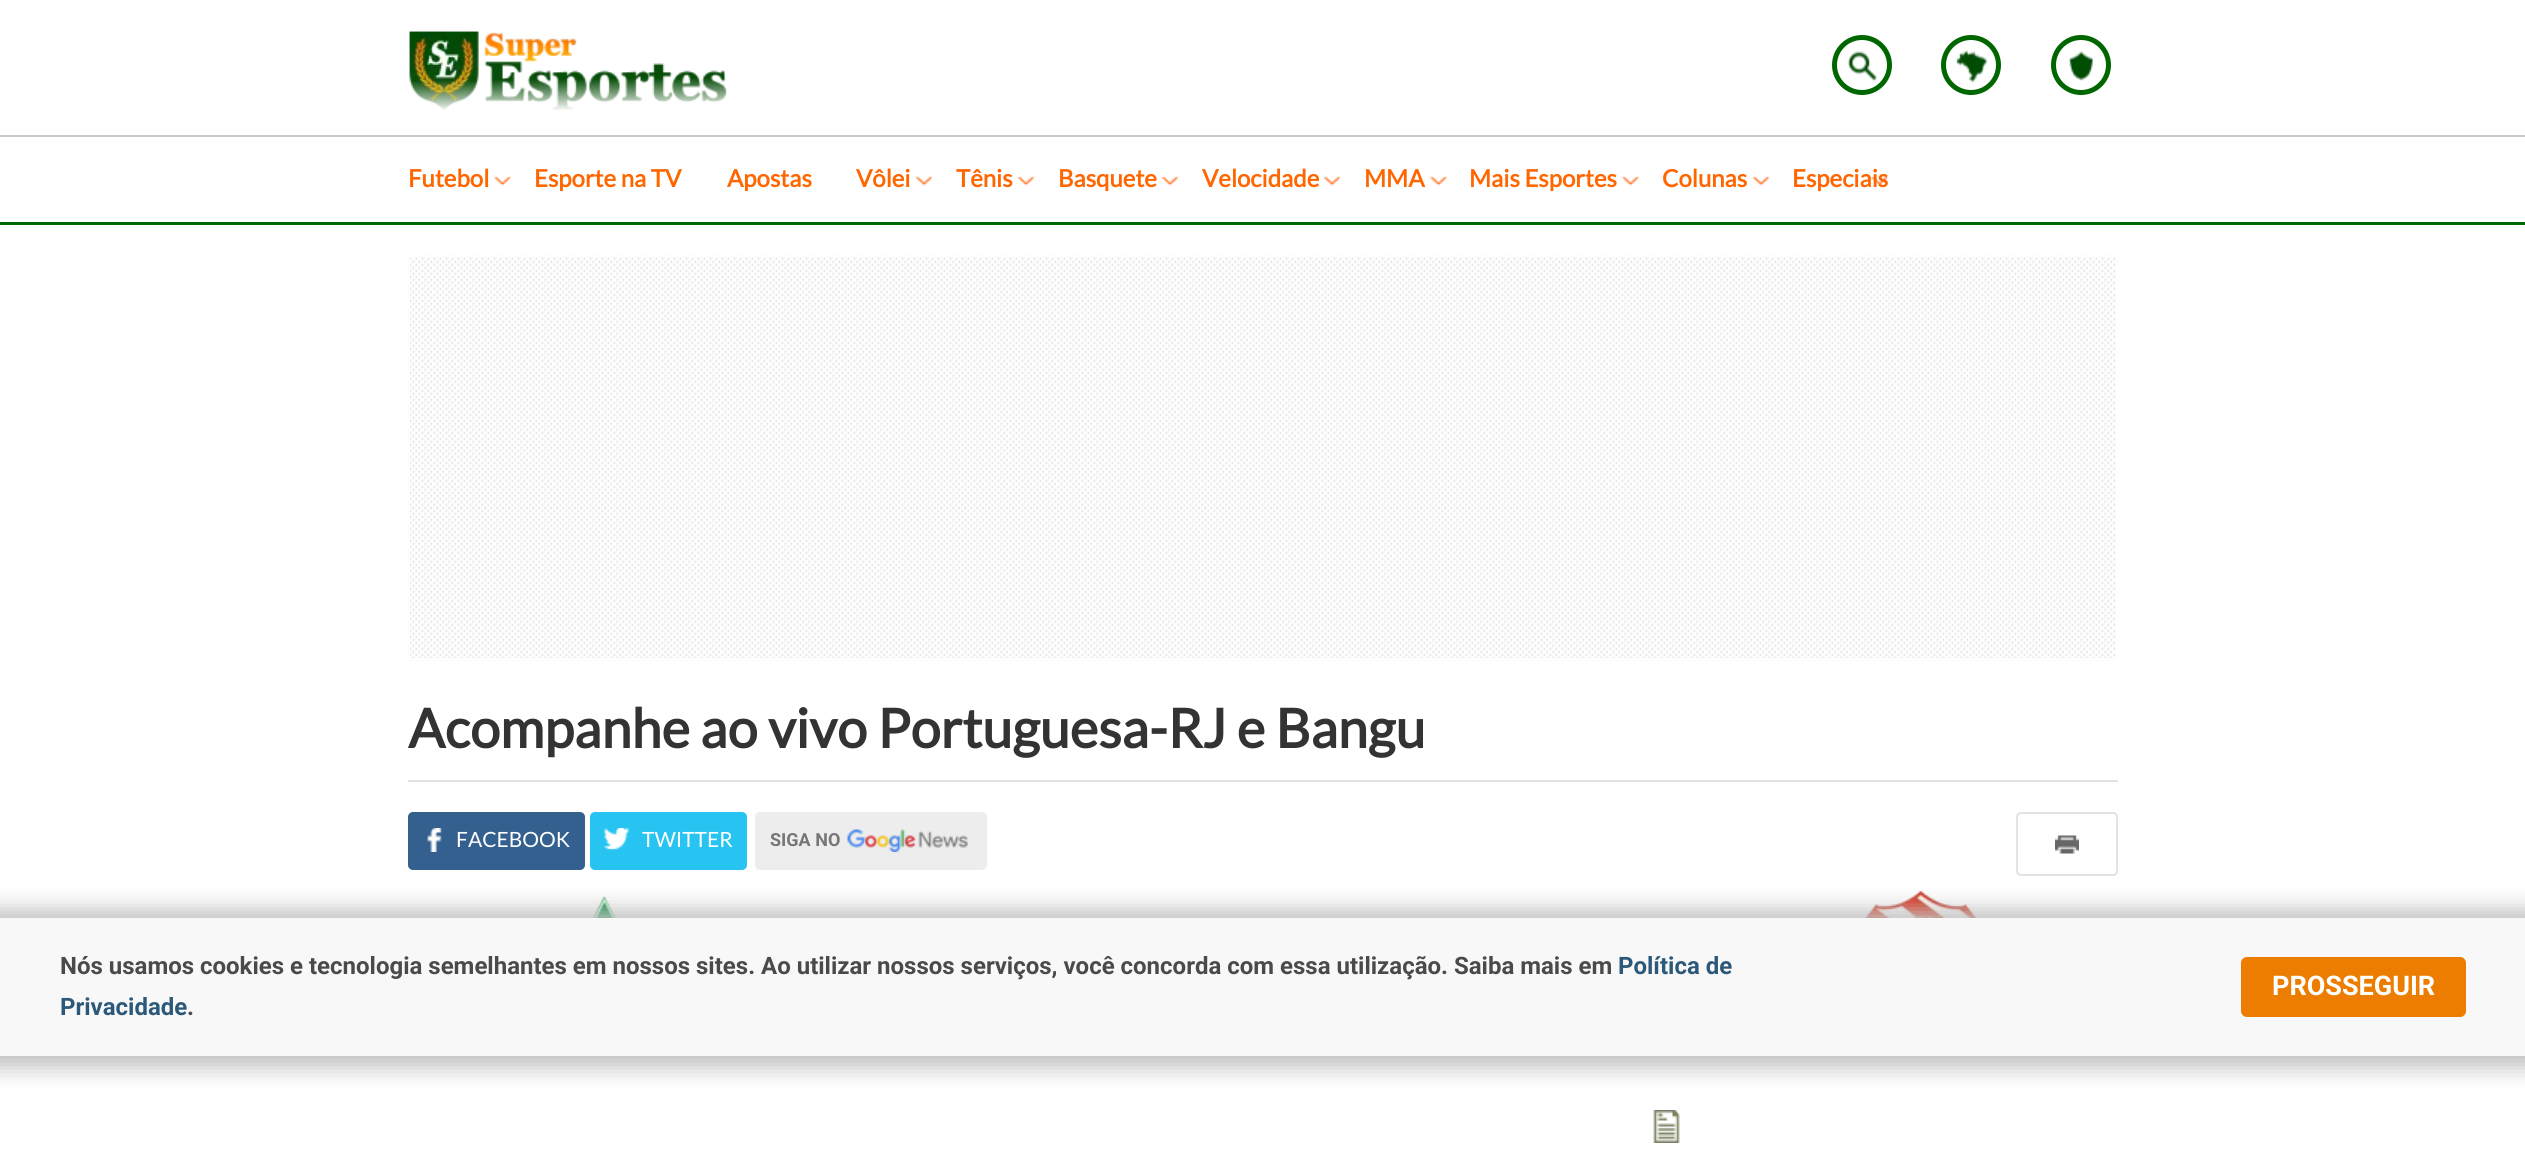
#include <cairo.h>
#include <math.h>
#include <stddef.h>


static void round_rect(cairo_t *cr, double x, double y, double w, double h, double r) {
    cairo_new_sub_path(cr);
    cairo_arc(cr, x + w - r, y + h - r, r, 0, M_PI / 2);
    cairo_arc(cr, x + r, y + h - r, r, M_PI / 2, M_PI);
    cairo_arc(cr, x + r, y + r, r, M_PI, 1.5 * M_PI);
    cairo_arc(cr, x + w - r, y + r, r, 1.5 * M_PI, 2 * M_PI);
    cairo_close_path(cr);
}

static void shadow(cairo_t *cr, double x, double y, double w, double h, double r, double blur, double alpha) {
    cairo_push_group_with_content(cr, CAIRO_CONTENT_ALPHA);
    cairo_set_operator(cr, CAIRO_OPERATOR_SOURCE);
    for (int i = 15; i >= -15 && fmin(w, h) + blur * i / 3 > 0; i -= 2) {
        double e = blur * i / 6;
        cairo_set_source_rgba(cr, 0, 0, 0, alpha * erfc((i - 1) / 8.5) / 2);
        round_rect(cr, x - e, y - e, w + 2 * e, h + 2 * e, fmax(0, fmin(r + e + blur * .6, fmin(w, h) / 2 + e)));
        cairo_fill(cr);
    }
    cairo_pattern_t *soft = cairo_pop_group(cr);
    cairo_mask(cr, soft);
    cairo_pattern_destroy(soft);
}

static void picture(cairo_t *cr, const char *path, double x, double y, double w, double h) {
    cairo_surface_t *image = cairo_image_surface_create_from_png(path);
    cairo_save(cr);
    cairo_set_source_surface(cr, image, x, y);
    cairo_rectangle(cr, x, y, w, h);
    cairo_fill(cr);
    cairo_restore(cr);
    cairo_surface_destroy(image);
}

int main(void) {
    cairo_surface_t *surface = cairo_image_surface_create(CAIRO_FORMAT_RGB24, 2525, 1161);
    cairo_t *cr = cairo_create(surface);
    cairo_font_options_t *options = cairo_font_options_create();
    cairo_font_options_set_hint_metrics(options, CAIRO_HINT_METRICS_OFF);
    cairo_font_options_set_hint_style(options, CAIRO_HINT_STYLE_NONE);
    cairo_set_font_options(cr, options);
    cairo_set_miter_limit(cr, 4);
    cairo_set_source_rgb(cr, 1, 1, 1);
    cairo_paint(cr);
    picture(cr, "img1.png", 409, 31, 318, 79);
    cairo_arc(cr, 1862, 65, 27.5, 0, 2 * M_PI);
    cairo_set_source_rgb(cr, 0, 0.4, 0);
    cairo_set_line_width(cr, 5);
    cairo_stroke(cr);
    picture(cr, "img2.png", 1847, 51, 30, 30);
    cairo_arc(cr, 1971, 65, 27.5, 0, 2 * M_PI);
    cairo_stroke(cr);
    picture(cr, "img3.png", 1956, 50, 32, 33);
    cairo_arc(cr, 2081, 65, 27.5, 0, 2 * M_PI);
    cairo_stroke(cr);
    picture(cr, "img4.png", 2069, 51, 25, 30);
    cairo_set_source_rgb(cr, 0.792, 0.792, 0.792);
    cairo_rectangle(cr, 0, 135, 2525, 2);
    cairo_fill(cr);
    cairo_set_source_rgb(cr, 0, 0.4, 0);
    cairo_rectangle(cr, 0, 222, 2525, 3);
    cairo_fill(cr);
    cairo_select_font_face(cr, "Lato", CAIRO_FONT_SLANT_NORMAL, CAIRO_FONT_WEIGHT_BOLD);
    cairo_set_font_size(cr, 24);
    cairo_set_source_rgb(cr, 1, 0.4, 0);
    cairo_move_to(cr, 408, 187);
    cairo_show_text(cr, "Futebol");
    picture(cr, "img5.png", 494, 176, 18, 10);
    cairo_move_to(cr, 534, 187);
    cairo_show_text(cr, "Esporte na TV");
    cairo_move_to(cr, 727, 187);
    cairo_show_text(cr, "Apostas");
    cairo_move_to(cr, 856, 187);
    cairo_show_text(cr, "Vôlei");
    picture(cr, "img6.png", 915, 176, 18, 10);
    cairo_move_to(cr, 956, 187);
    cairo_show_text(cr, "Tênis");
    picture(cr, "img6.png", 1017, 176, 18, 10);
    cairo_move_to(cr, 1058, 187);
    cairo_show_text(cr, "Basquete");
    picture(cr, "img6.png", 1161, 176, 18, 10);
    cairo_move_to(cr, 1202, 187);
    cairo_show_text(cr, "Velocidade");
    picture(cr, "img6.png", 1323, 176, 18, 10);
    cairo_move_to(cr, 1364, 187);
    cairo_show_text(cr, "MMA");
    picture(cr, "img7.png", 1429, 176, 19, 10);
    cairo_move_to(cr, 1469, 187);
    cairo_show_text(cr, "Mais Esportes");
    picture(cr, "img7.png", 1621, 176, 19, 10);
    cairo_move_to(cr, 1662, 187);
    cairo_show_text(cr, "Colunas");
    picture(cr, "img6.png", 1752, 176, 18, 10);
    cairo_move_to(cr, 1792, 187);
    cairo_show_text(cr, "Especiais");
    picture(cr, "img8.png", 1870, 176, 19, 10);
    picture(cr, "img9.png", 408, 254, 1710, 407);
    cairo_rectangle(cr, 409, 256, 1708, 403);
    cairo_set_source_rgb(cr, 0.996, 0.996, 0.996);
    cairo_set_line_width(cr, 2);
    cairo_stroke(cr);
    cairo_set_font_size(cr, 54);
    cairo_set_source_rgb(cr, 0.2, 0.2, 0.2);
    cairo_move_to(cr, 408, 748);
    cairo_show_text(cr, "Acompanhe ao vivo Portuguesa-RJ e Bangu");
    cairo_set_source_rgb(cr, 0.89, 0.89, 0.89);
    cairo_rectangle(cr, 408, 780, 1710, 2);
    cairo_fill(cr);
    cairo_set_source_rgb(cr, 0.204, 0.376, 0.561);
    round_rect(cr, 408, 812, 177, 58, 5);
    cairo_fill(cr);
    picture(cr, "img10.png", 427, 828, 15, 24);
    cairo_select_font_face(cr, "Lato", CAIRO_FONT_SLANT_NORMAL, CAIRO_FONT_WEIGHT_NORMAL);
    cairo_set_font_size(cr, 21);
    cairo_set_source_rgb(cr, 1, 1, 1);
    cairo_move_to(cr, 456, 847);
    cairo_show_text(cr, "FACEBOOK");
    cairo_set_source_rgb(cr, 0.153, 0.769, 0.945);
    round_rect(cr, 590, 812, 157, 58, 5);
    cairo_fill(cr);
    picture(cr, "img11.png", 604, 828, 25, 22);
    cairo_set_source_rgb(cr, 1, 1, 1);
    cairo_move_to(cr, 642, 847);
    cairo_show_text(cr, "TWITTER");
    cairo_set_source_rgb(cr, 0.929, 0.929, 0.929);
    round_rect(cr, 755, 812, 232, 58, 5);
    cairo_fill(cr);
    cairo_select_font_face(cr, "Roboto", CAIRO_FONT_SLANT_NORMAL, CAIRO_FONT_WEIGHT_BOLD);
    cairo_set_font_size(cr, 18);
    cairo_set_source_rgb(cr, 0.463, 0.463, 0.463);
    cairo_move_to(cr, 770, 846);
    cairo_show_text(cr, "SIGA NO");
    picture(cr, "img12.png", 847, 829, 121, 23);
    round_rect(cr, 2017, 813, 100, 62, 4);
    cairo_set_source_rgb(cr, 0.89, 0.89, 0.89);
    cairo_stroke(cr);
    picture(cr, "img13.png", 2055, 835, 24, 19);
    picture(cr, "img14.png", 592, 896, 25, 22);
    picture(cr, "img15.png", 1864, 891, 114, 27);
    picture(cr, "img16.png", 1653, 1110, 27, 33);
    cairo_set_source_rgb(cr, 0.757, 0.757, 0.757);
    shadow(cr, -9, 909, 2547, 159, 0, 11, 1);
    cairo_set_source_rgb(cr, 0.969, 0.969, 0.969);
    cairo_rectangle(cr, 0, 918, 2525, 138);
    cairo_fill(cr);
    cairo_set_font_size(cr, 24);
    cairo_set_source_rgb(cr, 0.29, 0.29, 0.29);
    cairo_move_to(cr, 60, 974);
    cairo_show_text(cr, "Nós usamos cookies e tecnologia semelhantes em nossos sites. Ao utilizar nossos serviços, você concorda com essa utilização. Saiba mais em");
    cairo_set_source_rgb(cr, 0.173, 0.349, 0.478);
    cairo_move_to(cr, 1618, 974);
    cairo_show_text(cr, "Política de");
    cairo_move_to(cr, 60, 1015);
    cairo_show_text(cr, "Privacidade");
    cairo_set_source_rgb(cr, 0.29, 0.29, 0.29);
    cairo_move_to(cr, 187, 1015);
    cairo_show_text(cr, ".");
    cairo_set_source_rgb(cr, 0.929, 0.49, 0);
    round_rect(cr, 2242, 958, 223, 58, 5);
    cairo_fill_preserve(cr);
    cairo_stroke(cr);
    cairo_set_font_size(cr, 27);
    cairo_set_source_rgb(cr, 1, 1, 1);
    cairo_move_to(cr, 2272, 995);
    cairo_show_text(cr, "PROSSEGUIR");
    cairo_surface_write_to_png(surface, "page.png");
    cairo_font_options_destroy(options);
    cairo_destroy(cr);
    cairo_surface_destroy(surface);
    return 0;
}
